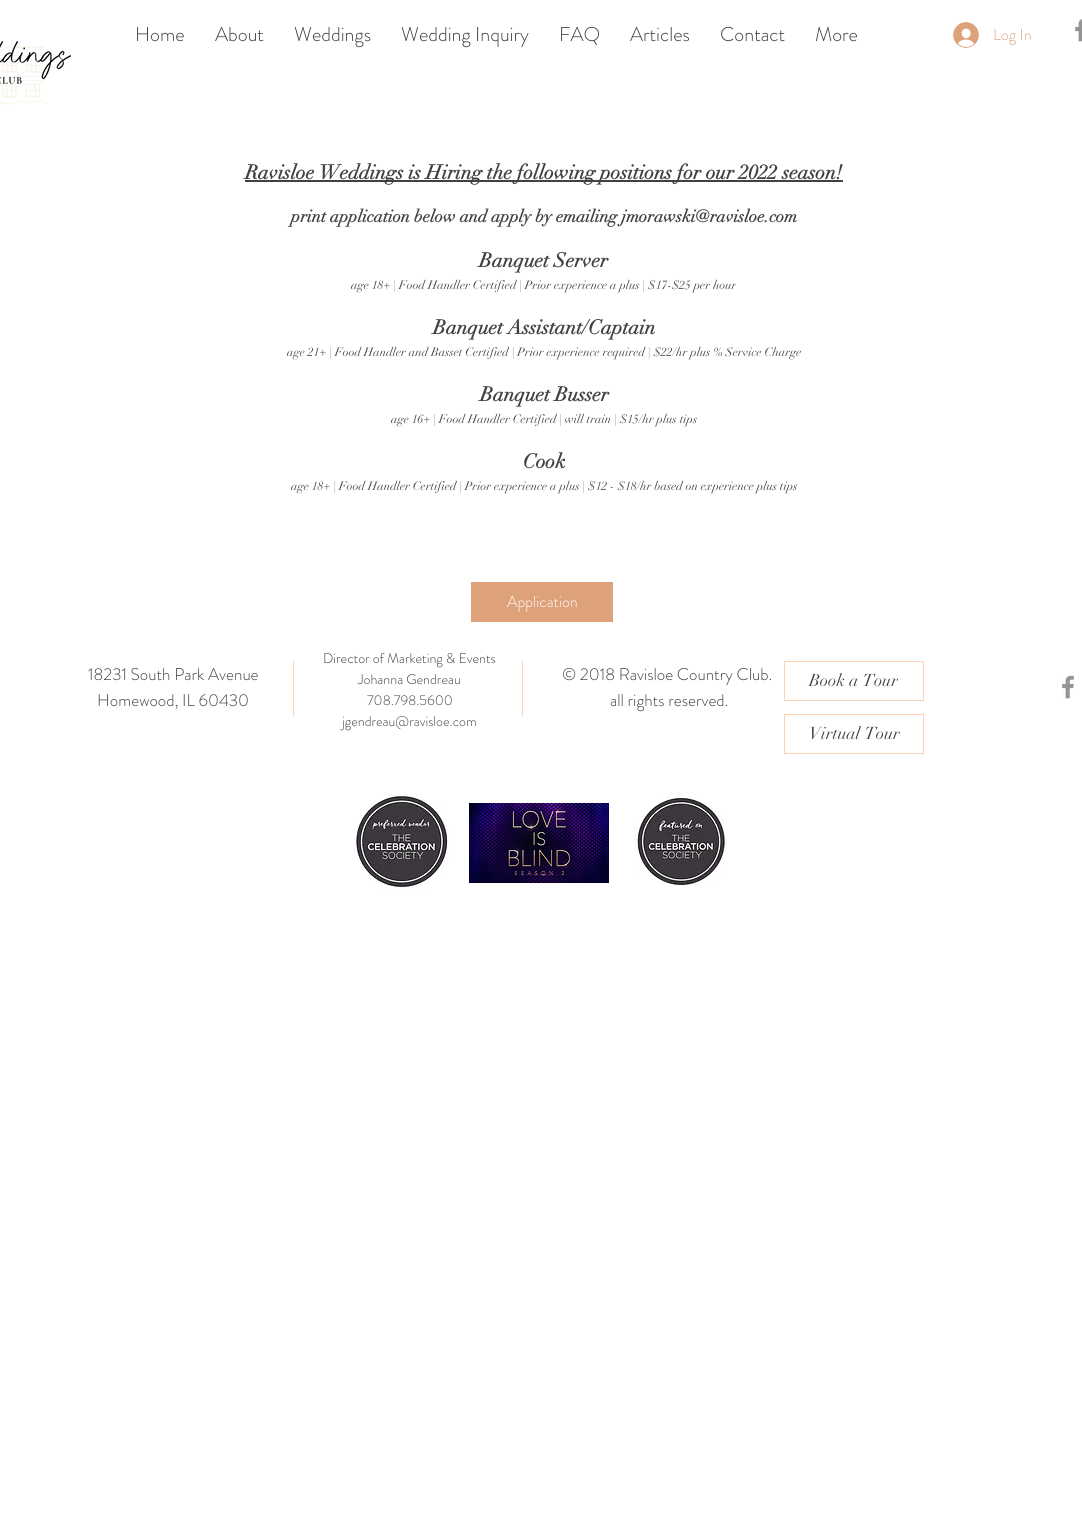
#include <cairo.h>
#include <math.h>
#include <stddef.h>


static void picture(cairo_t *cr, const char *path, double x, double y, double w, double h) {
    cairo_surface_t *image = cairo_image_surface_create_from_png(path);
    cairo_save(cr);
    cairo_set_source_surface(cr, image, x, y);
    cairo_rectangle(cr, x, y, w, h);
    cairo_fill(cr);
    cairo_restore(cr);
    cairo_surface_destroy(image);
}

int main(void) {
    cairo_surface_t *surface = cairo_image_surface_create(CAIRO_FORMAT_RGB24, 1082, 1531);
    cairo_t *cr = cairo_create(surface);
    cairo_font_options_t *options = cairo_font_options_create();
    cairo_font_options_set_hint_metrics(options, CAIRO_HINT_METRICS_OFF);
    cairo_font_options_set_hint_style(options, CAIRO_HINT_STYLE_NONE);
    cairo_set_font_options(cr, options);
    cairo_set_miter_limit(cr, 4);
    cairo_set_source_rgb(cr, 1, 1, 1);
    cairo_paint(cr);
    cairo_select_font_face(cr, "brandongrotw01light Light", CAIRO_FONT_SLANT_NORMAL, CAIRO_FONT_WEIGHT_NORMAL);
    cairo_set_font_size(cr, 20);
    cairo_set_source_rgb(cr, 0.255, 0.255, 0.255);
    cairo_move_to(cr, 135, 41);
    cairo_show_text(cr, "Home");
    cairo_move_to(cr, 215, 41);
    cairo_show_text(cr, "About");
    cairo_move_to(cr, 294, 41);
    cairo_show_text(cr, "Weddings");
    cairo_move_to(cr, 401, 41);
    cairo_show_text(cr, "Wedding Inquiry");
    cairo_move_to(cr, 559, 41);
    cairo_show_text(cr, "FAQ");
    cairo_move_to(cr, 630, 41);
    cairo_show_text(cr, "Articles");
    cairo_move_to(cr, 720, 41);
    cairo_show_text(cr, "Contact");
    cairo_move_to(cr, 815, 41);
    cairo_show_text(cr, "More");
    picture(cr, "img1.png", 953, 22, 26, 26);
    cairo_set_font_size(cr, 16);
    cairo_set_source_rgb(cr, 0.871, 0.635, 0.478);
    cairo_move_to(cr, 993, 40);
    cairo_show_text(cr, "Log In");
    picture(cr, "img2.png", 1075, 19, 7, 23);
    picture(cr, "img3.png", 0, 41, 71, 64);
    cairo_set_source_rgb(cr, 0.255, 0.255, 0.255);
    cairo_rectangle(cr, 245, 180, 598, 2);
    cairo_fill(cr);
    cairo_select_font_face(cr, "didot", CAIRO_FONT_SLANT_NORMAL, CAIRO_FONT_WEIGHT_BOLD);
    cairo_set_font_size(cr, 20);
    cairo_move_to(cr, 245, 179);
    cairo_show_text(cr, "Ravisloe Weddings is Hiring the following positions for our 2022 season!");
    cairo_set_font_size(cr, 17);
    cairo_move_to(cr, 291, 222);
    cairo_show_text(cr, "print application below and apply by emailing jmorawski@ravisloe.com");
    cairo_set_font_size(cr, 20);
    cairo_move_to(cr, 479, 267);
    cairo_show_text(cr, "Banquet Server");
    cairo_select_font_face(cr, "didot", CAIRO_FONT_SLANT_NORMAL, CAIRO_FONT_WEIGHT_NORMAL);
    cairo_set_font_size(cr, 12);
    cairo_move_to(cr, 351, 289);
    cairo_show_text(cr, "age 18+ | Food Handler Certified | Prior experience a plus | $17-$25 per hour");
    cairo_select_font_face(cr, "didot", CAIRO_FONT_SLANT_NORMAL, CAIRO_FONT_WEIGHT_BOLD);
    cairo_set_font_size(cr, 20);
    cairo_move_to(cr, 433, 334);
    cairo_show_text(cr, "Banquet Assistant/Captain");
    cairo_select_font_face(cr, "didot", CAIRO_FONT_SLANT_NORMAL, CAIRO_FONT_WEIGHT_NORMAL);
    cairo_set_font_size(cr, 12);
    cairo_move_to(cr, 287, 356);
    cairo_show_text(cr, "age 21+ | Food Handler and Basset Certified | Prior experience required | $22/hr plus % Service Charge");
    cairo_select_font_face(cr, "didot", CAIRO_FONT_SLANT_NORMAL, CAIRO_FONT_WEIGHT_BOLD);
    cairo_set_font_size(cr, 20);
    cairo_move_to(cr, 480, 401);
    cairo_show_text(cr, "Banquet Busser");
    cairo_select_font_face(cr, "didot", CAIRO_FONT_SLANT_NORMAL, CAIRO_FONT_WEIGHT_NORMAL);
    cairo_set_font_size(cr, 12);
    cairo_move_to(cr, 391, 423);
    cairo_show_text(cr, "age 16+ | Food Handler Certified | will train | $15/hr plus tips");
    cairo_select_font_face(cr, "didot", CAIRO_FONT_SLANT_NORMAL, CAIRO_FONT_WEIGHT_BOLD);
    cairo_set_font_size(cr, 20);
    cairo_move_to(cr, 523, 468);
    cairo_show_text(cr, "Cook");
    cairo_select_font_face(cr, "didot", CAIRO_FONT_SLANT_NORMAL, CAIRO_FONT_WEIGHT_NORMAL);
    cairo_set_font_size(cr, 12);
    cairo_move_to(cr, 291, 490);
    cairo_show_text(cr, "age 18+ | Food Handler Certified | Prior experience a plus | $12 - $18/hr based on experience plus tips");
    cairo_set_source_rgb(cr, 0.871, 0.635, 0.478);
    cairo_rectangle(cr, 471, 582, 142, 40);
    cairo_fill(cr);
    cairo_select_font_face(cr, "brandongrotw01light Light", CAIRO_FONT_SLANT_NORMAL, CAIRO_FONT_WEIGHT_NORMAL);
    cairo_set_font_size(cr, 16);
    cairo_set_source_rgb(cr, 1, 1, 1);
    cairo_move_to(cr, 507, 607);
    cairo_show_text(cr, "Application");
    cairo_set_font_size(cr, 17);
    cairo_set_source_rgb(cr, 0.255, 0.255, 0.255);
    cairo_move_to(cr, 88, 680);
    cairo_show_text(cr, "18231 South Park Avenue");
    cairo_move_to(cr, 97, 706);
    cairo_show_text(cr, "Homewood, IL 60430");
    cairo_set_source_rgb(cr, 1, 0.824, 0.702);
    cairo_rectangle(cr, 293, 661, 1, 55);
    cairo_fill(cr);
    cairo_set_font_size(cr, 14);
    cairo_set_source_rgb(cr, 0.255, 0.255, 0.255);
    cairo_move_to(cr, 323, 663);
    cairo_show_text(cr, "Director of Marketing & Events");
    cairo_move_to(cr, 358, 684);
    cairo_show_text(cr, "Johanna Gendreau");
    cairo_move_to(cr, 367, 705);
    cairo_show_text(cr, "708.798.5600");
    cairo_move_to(cr, 342, 726);
    cairo_show_text(cr, "jgendreau@ravisloe.com");
    cairo_set_source_rgb(cr, 1, 0.824, 0.702);
    cairo_rectangle(cr, 522, 661, 1, 55);
    cairo_fill(cr);
    cairo_set_font_size(cr, 17);
    cairo_set_source_rgb(cr, 0.255, 0.255, 0.255);
    cairo_move_to(cr, 562, 680);
    cairo_show_text(cr, "© 2018 Ravisloe Country Club.");
    cairo_move_to(cr, 610, 706);
    cairo_show_text(cr, "all rights reserved.");
    cairo_rectangle(cr, 784.5, 661.5, 139, 39);
    cairo_set_source_rgb(cr, 1, 0.824, 0.702);
    cairo_set_line_width(cr, 1);
    cairo_stroke(cr);
    cairo_select_font_face(cr, "didot", CAIRO_FONT_SLANT_NORMAL, CAIRO_FONT_WEIGHT_NORMAL);
    cairo_set_source_rgb(cr, 0.255, 0.255, 0.255);
    cairo_move_to(cr, 809, 686);
    cairo_show_text(cr, "Book a Tour");
    picture(cr, "img4.png", 1062, 675, 12, 24);
    cairo_rectangle(cr, 784.5, 714.5, 139, 39);
    cairo_set_source_rgb(cr, 1, 0.824, 0.702);
    cairo_stroke(cr);
    cairo_set_source_rgb(cr, 0.255, 0.255, 0.255);
    cairo_move_to(cr, 809, 739);
    cairo_show_text(cr, "Virtual Tour");
    picture(cr, "img5.png", 353, 794, 96, 95);
    picture(cr, "img6.png", 469, 803, 140, 80);
    picture(cr, "img7.png", 635, 798, 92, 88);
    cairo_surface_write_to_png(surface, "page.png");
    cairo_font_options_destroy(options);
    cairo_destroy(cr);
    cairo_surface_destroy(surface);
    return 0;
}
